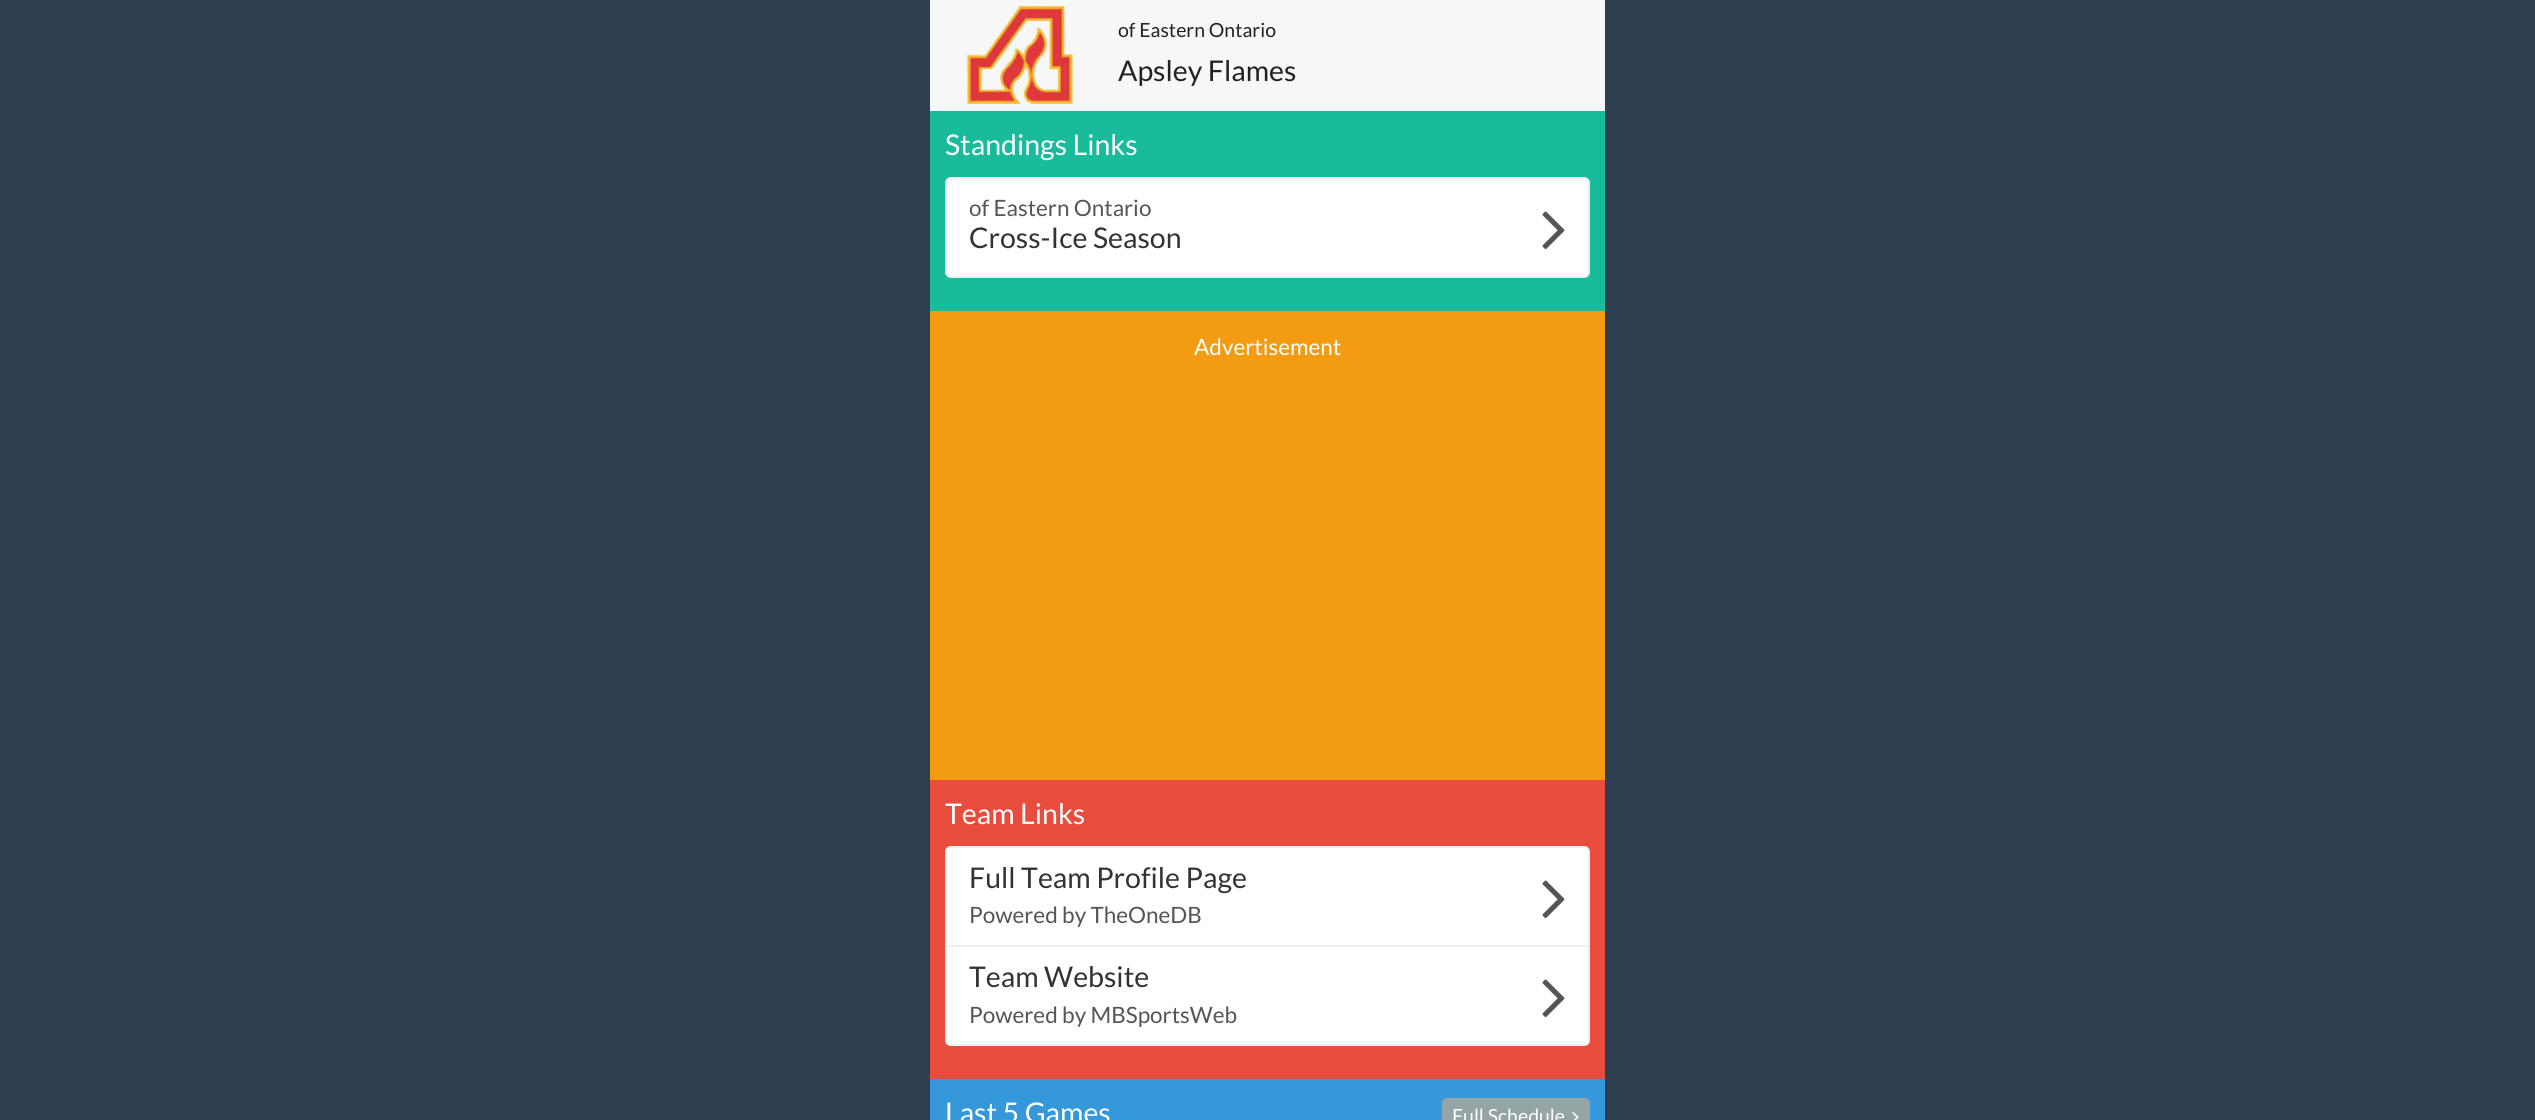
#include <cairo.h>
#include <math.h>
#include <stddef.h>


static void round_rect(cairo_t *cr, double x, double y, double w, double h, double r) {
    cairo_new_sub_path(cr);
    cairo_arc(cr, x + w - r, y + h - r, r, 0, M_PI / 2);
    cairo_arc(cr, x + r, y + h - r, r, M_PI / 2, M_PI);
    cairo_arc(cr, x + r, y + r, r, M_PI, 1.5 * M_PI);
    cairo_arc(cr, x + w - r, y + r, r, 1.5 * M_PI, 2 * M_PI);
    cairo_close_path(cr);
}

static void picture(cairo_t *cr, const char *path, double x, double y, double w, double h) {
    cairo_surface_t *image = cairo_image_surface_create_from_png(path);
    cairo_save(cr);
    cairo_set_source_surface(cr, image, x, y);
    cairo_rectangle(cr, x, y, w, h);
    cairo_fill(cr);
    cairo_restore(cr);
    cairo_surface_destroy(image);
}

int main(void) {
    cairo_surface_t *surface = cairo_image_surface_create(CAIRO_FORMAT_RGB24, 2535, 1120);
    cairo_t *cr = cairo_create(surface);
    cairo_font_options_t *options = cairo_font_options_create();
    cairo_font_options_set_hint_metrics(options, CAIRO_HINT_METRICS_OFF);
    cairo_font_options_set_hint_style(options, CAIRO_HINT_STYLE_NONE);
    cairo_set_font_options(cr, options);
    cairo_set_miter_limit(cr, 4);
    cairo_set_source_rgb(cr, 0.173, 0.243, 0.314);
    cairo_paint(cr);
    cairo_set_source_rgb(cr, 0.965, 0.965, 0.965);
    cairo_rectangle(cr, 930, 0, 675, 111);
    cairo_fill(cr);
    picture(cr, "img1.png", 967, 6, 106, 98);
    cairo_select_font_face(cr, "Lato", CAIRO_FONT_SLANT_NORMAL, CAIRO_FONT_WEIGHT_NORMAL);
    cairo_set_font_size(cr, 19.5);
    cairo_set_source_rgb(cr, 0.133, 0.133, 0.133);
    cairo_move_to(cr, 1118, 37);
    cairo_show_text(cr, "of Eastern Ontario");
    cairo_set_font_size(cr, 28.5);
    cairo_move_to(cr, 1118, 81);
    cairo_show_text(cr, "Apsley Flames");
    cairo_set_source_rgb(cr, 0.094, 0.737, 0.612);
    cairo_rectangle(cr, 930, 111, 675, 200);
    cairo_fill(cr);
    cairo_set_source_rgb(cr, 1, 1, 1);
    cairo_move_to(cr, 945, 155);
    cairo_show_text(cr, "Standings Links");
    round_rect(cr, 946, 178, 643, 99, 5);
    cairo_fill_preserve(cr);
    cairo_set_source_rgb(cr, 0.925, 0.941, 0.945);
    cairo_stroke(cr);
    cairo_set_font_size(cr, 22.5);
    cairo_set_source_rgb(cr, 0.333, 0.333, 0.333);
    cairo_move_to(cr, 969, 216);
    cairo_show_text(cr, "of Eastern Ontario");
    cairo_set_font_size(cr, 28.5);
    cairo_set_source_rgb(cr, 0.2, 0.2, 0.2);
    cairo_move_to(cr, 969, 248);
    cairo_show_text(cr, "Cross-Ice Season");
    picture(cr, "img2.png", 1542, 211, 23, 39);
    cairo_set_source_rgb(cr, 0.953, 0.612, 0.071);
    cairo_rectangle(cr, 930, 311, 675, 469);
    cairo_fill(cr);
    cairo_set_font_size(cr, 22.5);
    cairo_set_source_rgb(cr, 1, 1, 1);
    cairo_move_to(cr, 1194, 355);
    cairo_show_text(cr, "Advertisement");
    cairo_set_source_rgb(cr, 0.906, 0.298, 0.235);
    cairo_rectangle(cr, 930, 780, 675, 299);
    cairo_fill(cr);
    cairo_set_font_size(cr, 28.5);
    cairo_set_source_rgb(cr, 1, 1, 1);
    cairo_move_to(cr, 945, 824);
    cairo_show_text(cr, "Team Links");
    cairo_new_path(cr);
    cairo_move_to(cr, 951, 847);
    cairo_line_to(cr, 1584, 847);
    cairo_curve_to(cr, 1587, 847, 1589, 849, 1589, 852);
    cairo_line_to(cr, 1589, 946);
    cairo_line_to(cr, 946, 946);
    cairo_line_to(cr, 946, 852);
    cairo_curve_to(cr, 946, 849, 948, 847, 951, 847);
    cairo_close_path(cr);
    cairo_fill_preserve(cr);
    cairo_set_source_rgb(cr, 0.925, 0.941, 0.945);
    cairo_stroke(cr);
    cairo_set_source_rgb(cr, 0.2, 0.2, 0.2);
    cairo_move_to(cr, 969, 888);
    cairo_show_text(cr, "Full Team Profile Page");
    picture(cr, "img2.png", 1542, 880, 23, 39);
    cairo_set_font_size(cr, 22.5);
    cairo_set_source_rgb(cr, 0.333, 0.333, 0.333);
    cairo_move_to(cr, 969, 923);
    cairo_show_text(cr, "Powered by TheOneDB");
    cairo_set_source_rgb(cr, 1, 1, 1);
    cairo_new_path(cr);
    cairo_move_to(cr, 946, 946);
    cairo_line_to(cr, 1589, 946);
    cairo_line_to(cr, 1589, 1040);
    cairo_curve_to(cr, 1589, 1043, 1587, 1045, 1584, 1045);
    cairo_line_to(cr, 951, 1045);
    cairo_curve_to(cr, 948, 1045, 946, 1043, 946, 1040);
    cairo_close_path(cr);
    cairo_fill_preserve(cr);
    cairo_set_source_rgb(cr, 0.925, 0.941, 0.945);
    cairo_stroke(cr);
    cairo_set_font_size(cr, 28.5);
    cairo_set_source_rgb(cr, 0.2, 0.2, 0.2);
    cairo_move_to(cr, 969, 987);
    cairo_show_text(cr, "Team Website");
    picture(cr, "img2.png", 1542, 979, 23, 39);
    cairo_set_font_size(cr, 22.5);
    cairo_set_source_rgb(cr, 0.333, 0.333, 0.333);
    cairo_move_to(cr, 969, 1023);
    cairo_show_text(cr, "Powered by MBSportsWeb");
    cairo_set_source_rgb(cr, 0.204, 0.596, 0.859);
    cairo_rectangle(cr, 930, 1079, 675, 41);
    cairo_fill(cr);
    cairo_set_font_size(cr, 28.5);
    cairo_set_source_rgb(cr, 1, 1, 1);
    cairo_move_to(cr, 945, 1123);
    cairo_show_text(cr, "Last 5 Games");
    cairo_set_source_rgb(cr, 0.584, 0.647, 0.651);
    round_rect(cr, 1443.5, 1099.5, 145, 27, 3.5);
    cairo_fill_preserve(cr);
    cairo_set_line_width(cr, 3);
    cairo_stroke(cr);
    cairo_set_font_size(cr, 19.5);
    cairo_set_source_rgb(cr, 1, 1, 1);
    cairo_move_to(cr, 1452, 1123);
    cairo_show_text(cr, "Full Schedule");
    picture(cr, "img3.png", 1572, 1111, 7, 9);
    cairo_surface_write_to_png(surface, "page.png");
    cairo_font_options_destroy(options);
    cairo_destroy(cr);
    cairo_surface_destroy(surface);
    return 0;
}
